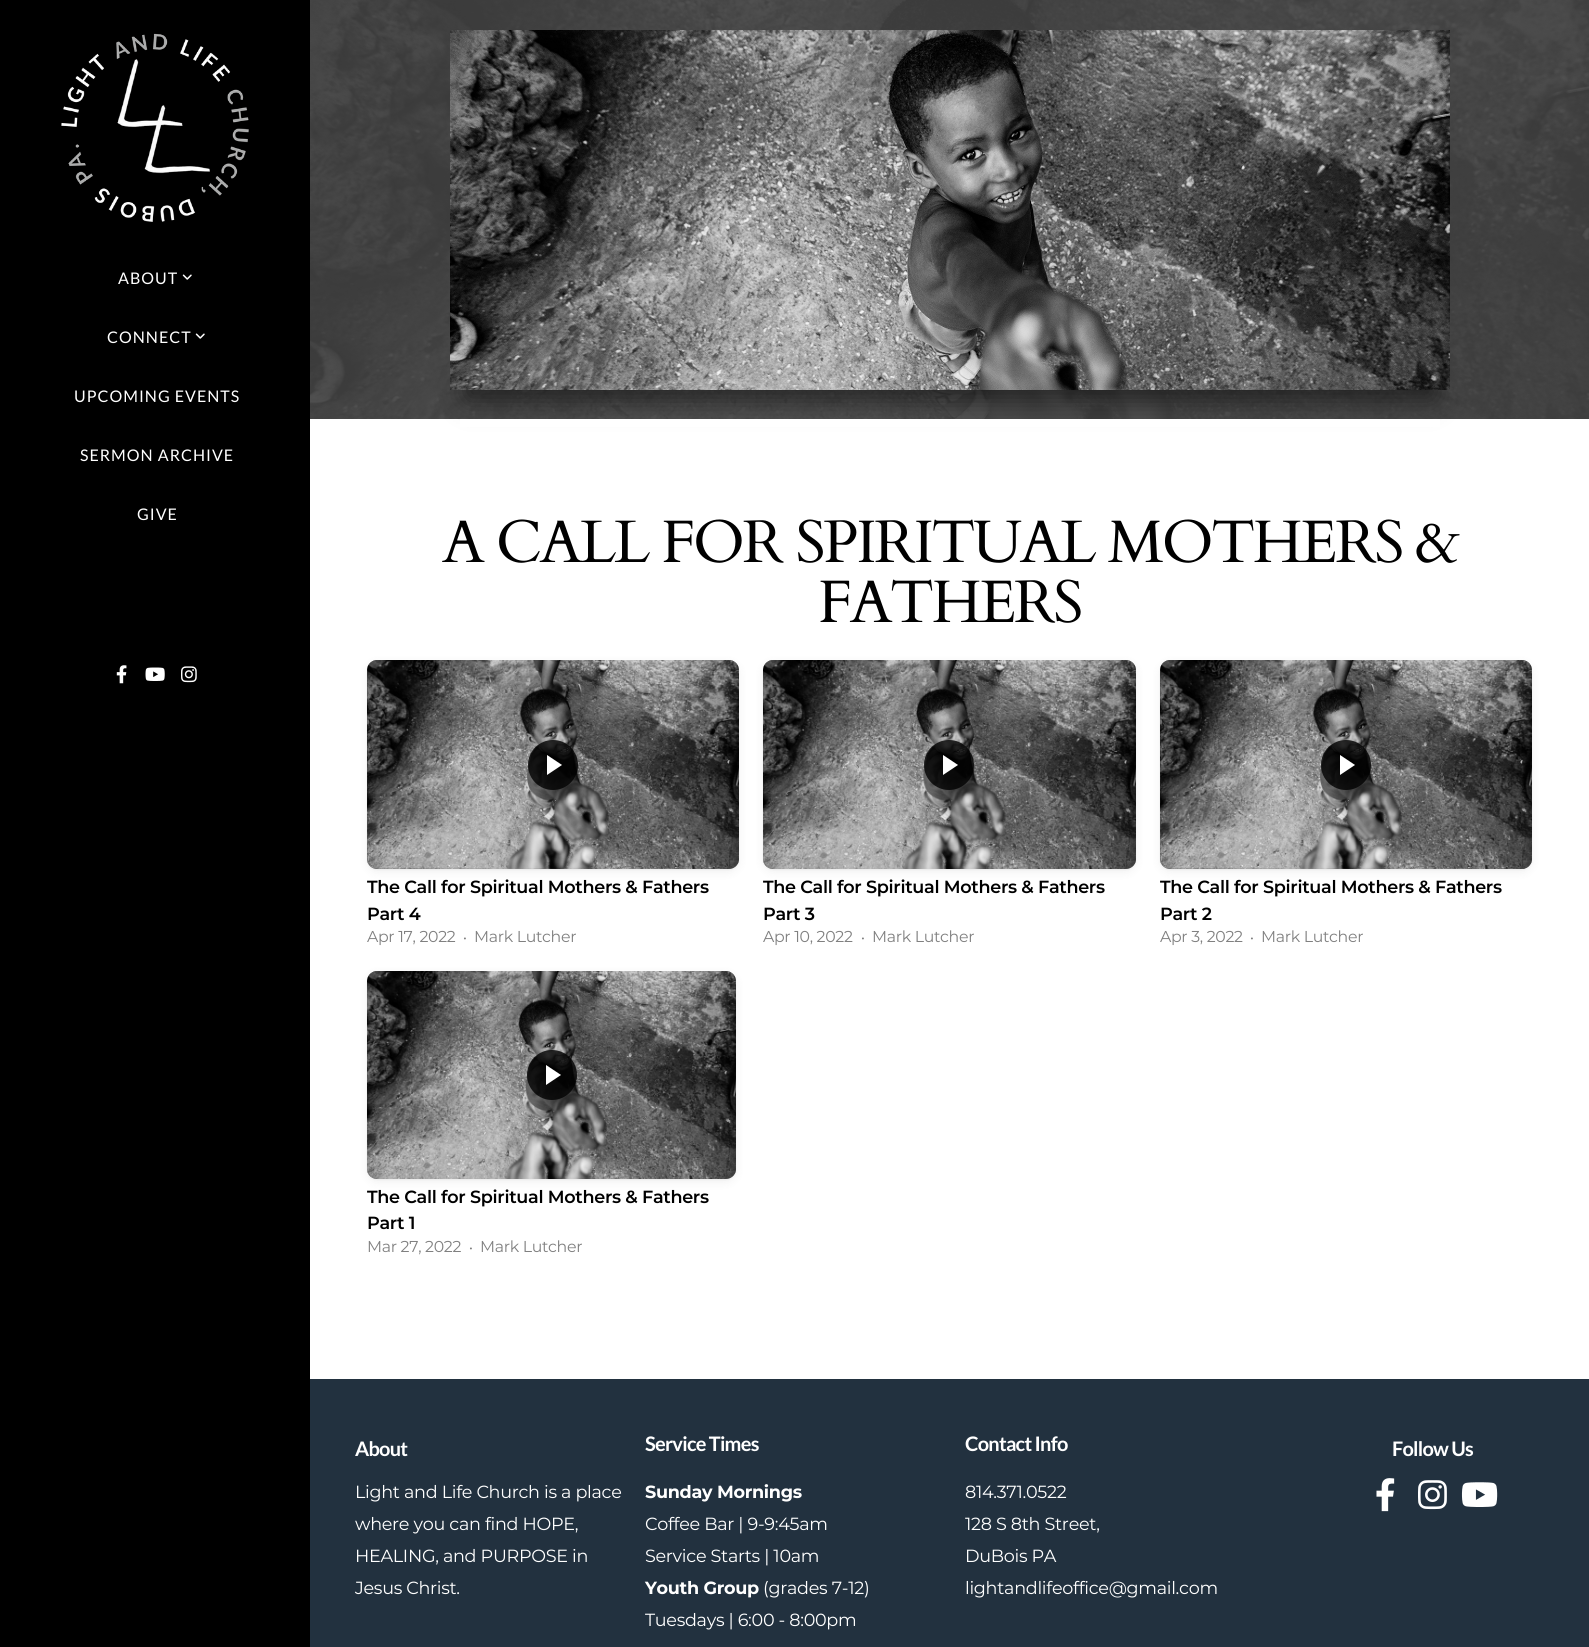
#include <cairo.h>
#include <math.h>
#include <stddef.h>


static void spaced_text(cairo_t *cr, double x, double y, const char *s, double letter, double word) {
    cairo_move_to(cr, x, y);
    while (*s) {
        char ch[5] = {0};
        int n = 0;
        do ch[n++] = *s++; while ((*s & 0xC0) == 0x80);
        cairo_show_text(cr, ch);
        cairo_rel_move_to(cr, letter + word * (*ch == ' '), 0);
    }
}

static void round_rect(cairo_t *cr, double x, double y, double w, double h, double r) {
    cairo_new_sub_path(cr);
    cairo_arc(cr, x + w - r, y + h - r, r, 0, M_PI / 2);
    cairo_arc(cr, x + r, y + h - r, r, M_PI / 2, M_PI);
    cairo_arc(cr, x + r, y + r, r, M_PI, 1.5 * M_PI);
    cairo_arc(cr, x + w - r, y + r, r, 1.5 * M_PI, 2 * M_PI);
    cairo_close_path(cr);
}

static void shadow(cairo_t *cr, double x, double y, double w, double h, double r, double blur, double alpha) {
    cairo_push_group_with_content(cr, CAIRO_CONTENT_ALPHA);
    cairo_set_operator(cr, CAIRO_OPERATOR_SOURCE);
    for (int i = 15; i >= -15 && fmin(w, h) + blur * i / 3 > 0; i -= 2) {
        double e = blur * i / 6;
        cairo_set_source_rgba(cr, 0, 0, 0, alpha * erfc((i - 1) / 8.5) / 2);
        round_rect(cr, x - e, y - e, w + 2 * e, h + 2 * e, fmax(0, fmin(r + e + blur * .6, fmin(w, h) / 2 + e)));
        cairo_fill(cr);
    }
    cairo_pattern_t *soft = cairo_pop_group(cr);
    cairo_mask(cr, soft);
    cairo_pattern_destroy(soft);
}

static void picture(cairo_t *cr, const char *path, double x, double y, double w, double h) {
    cairo_surface_t *image = cairo_image_surface_create_from_png(path);
    cairo_save(cr);
    cairo_set_source_surface(cr, image, x, y);
    cairo_rectangle(cr, x, y, w, h);
    cairo_fill(cr);
    cairo_restore(cr);
    cairo_surface_destroy(image);
}

int main(void) {
    cairo_surface_t *surface = cairo_image_surface_create(CAIRO_FORMAT_RGB24, 1589, 1647);
    cairo_t *cr = cairo_create(surface);
    cairo_font_options_t *options = cairo_font_options_create();
    cairo_font_options_set_hint_metrics(options, CAIRO_HINT_METRICS_OFF);
    cairo_font_options_set_hint_style(options, CAIRO_HINT_STYLE_NONE);
    cairo_set_font_options(cr, options);
    cairo_set_miter_limit(cr, 4);
    cairo_set_source_rgb(cr, 1, 1, 1);
    cairo_paint(cr);
    cairo_set_source_rgb(cr, 0, 0, 0);
    cairo_rectangle(cr, 0, 0, 310, 1647);
    cairo_fill(cr);
    picture(cr, "img1.png", 61, 33, 188, 189);
    cairo_select_font_face(cr, "Lato", CAIRO_FONT_SLANT_NORMAL, CAIRO_FONT_WEIGHT_NORMAL);
    cairo_set_font_size(cr, 16);
    cairo_set_source_rgb(cr, 1, 1, 1);
    spaced_text(cr, 118, 284, "ABOUT", 1, 0);
    picture(cr, "img2.png", 182, 274, 10, 6);
    spaced_text(cr, 107, 343, "CONNECT", 1, 0);
    picture(cr, "img2.png", 195, 333, 10, 6);
    spaced_text(cr, 74, 402, "UPCOMING EVENTS", 1, 0);
    spaced_text(cr, 80, 461, "SERMON ARCHIVE", 1, 0);
    spaced_text(cr, 137, 520, "GIVE", 1, 0);
    picture(cr, "img3.png", 116, 665, 11, 19);
    picture(cr, "img4.png", 145, 667, 20, 14);
    picture(cr, "img5.png", 181, 666, 16, 17);
    picture(cr, "img6.png", 310, 0, 1279, 419);
    cairo_set_source_rgb(cr, 0, 0, 0);
    shadow(cr, 464, 379, 972, 22, 11, 12.5, 0.5);
    picture(cr, "img7.png", 450, 30, 1000, 360);
    cairo_set_source_rgb(cr, 1, 1, 1);
    cairo_rectangle(cr, 460, 419, 980, 8);
    cairo_fill(cr);
    cairo_select_font_face(cr, "Cardo", CAIRO_FONT_SLANT_NORMAL, CAIRO_FONT_WEIGHT_NORMAL);
    cairo_set_font_size(cr, 60);
    cairo_set_source_rgb(cr, 0, 0, 0);
    spaced_text(cr, 442, 562, "A CALL FOR SPIRITUAL MOTHERS &", -2.4, 0);
    spaced_text(cr, 818, 622, "FATHERS", -2.4, 0);
    cairo_set_source_rgb(cr, 0, 0, 0);
    shadow(cr, 367, 661, 372, 209, 10, 1, 0.04);
    shadow(cr, 367, 663, 372, 209, 10, 5, 0.06);
    cairo_set_source_rgb(cr, 0.459, 0.459, 0.459);
    round_rect(cr, 367, 660, 372, 209, 10);
    cairo_fill(cr);
    picture(cr, "img8.png", 367, 660, 372, 209);
    cairo_set_source_rgba(cr, 0, 0, 0, 0.8);
    cairo_arc(cr, 553, 765, 25, 0, 2 * M_PI);
    cairo_fill(cr);
    cairo_set_source_rgb(cr, 1, 1, 1);
    cairo_new_path(cr);
    cairo_move_to(cr, 547, 775);
    cairo_line_to(cr, 547, 755);
    cairo_line_to(cr, 562, 765);
    cairo_close_path(cr);
    cairo_fill(cr);
    cairo_select_font_face(cr, "Montserrat SemiBold", CAIRO_FONT_SLANT_NORMAL, CAIRO_FONT_WEIGHT_NORMAL);
    cairo_set_font_size(cr, 17.6);
    cairo_set_source_rgb(cr, 0, 0, 0);
    spaced_text(cr, 367, 893, "The Call for Spiritual Mothers & Fathers", -0.3, 0);
    spaced_text(cr, 367, 920, "Part 4", -0.3, 0);
    cairo_select_font_face(cr, "Montserrat", CAIRO_FONT_SLANT_NORMAL, CAIRO_FONT_WEIGHT_NORMAL);
    cairo_set_font_size(cr, 15.75);
    cairo_set_source_rgb(cr, 0.502, 0.502, 0.502);
    spaced_text(cr, 367, 942, "Apr 17, 2022", -0.3, 0);
    cairo_set_font_size(cr, 13);
    spaced_text(cr, 463, 942, "•", -0.3, 0);
    cairo_set_font_size(cr, 15.75);
    spaced_text(cr, 474, 942, "Mark Lutcher", -0.3, 0);
    cairo_set_source_rgb(cr, 0, 0, 0);
    shadow(cr, 763, 661, 373, 209, 10, 1, 0.04);
    shadow(cr, 763, 663, 373, 209, 10, 5, 0.06);
    cairo_set_source_rgb(cr, 0.459, 0.459, 0.459);
    round_rect(cr, 763, 660, 373, 209, 10);
    cairo_fill(cr);
    picture(cr, "img9.png", 763, 660, 373, 209);
    cairo_set_source_rgba(cr, 0, 0, 0, 0.8);
    cairo_arc(cr, 949, 765, 25, 0, 2 * M_PI);
    cairo_fill(cr);
    cairo_set_source_rgb(cr, 1, 1, 1);
    cairo_new_path(cr);
    cairo_move_to(cr, 943, 775);
    cairo_line_to(cr, 943, 755);
    cairo_line_to(cr, 958, 765);
    cairo_close_path(cr);
    cairo_fill(cr);
    cairo_select_font_face(cr, "Montserrat SemiBold", CAIRO_FONT_SLANT_NORMAL, CAIRO_FONT_WEIGHT_NORMAL);
    cairo_set_font_size(cr, 17.6);
    cairo_set_source_rgb(cr, 0, 0, 0);
    spaced_text(cr, 763, 893, "The Call for Spiritual Mothers & Fathers", -0.3, 0);
    spaced_text(cr, 763, 920, "Part 3", -0.3, 0);
    cairo_select_font_face(cr, "Montserrat", CAIRO_FONT_SLANT_NORMAL, CAIRO_FONT_WEIGHT_NORMAL);
    cairo_set_font_size(cr, 15.75);
    cairo_set_source_rgb(cr, 0.502, 0.502, 0.502);
    spaced_text(cr, 763, 942, "Apr 10, 2022", -0.3, 0);
    cairo_set_font_size(cr, 13);
    spaced_text(cr, 861, 942, "•", -0.3, 0);
    cairo_set_font_size(cr, 15.75);
    spaced_text(cr, 872, 942, "Mark Lutcher", -0.3, 0);
    cairo_set_source_rgb(cr, 0, 0, 0);
    shadow(cr, 1160, 661, 372, 209, 10, 1, 0.04);
    shadow(cr, 1160, 663, 372, 209, 10, 5, 0.06);
    cairo_set_source_rgb(cr, 0.459, 0.459, 0.459);
    round_rect(cr, 1160, 660, 372, 209, 10);
    cairo_fill(cr);
    picture(cr, "img10.png", 1160, 660, 372, 209);
    cairo_set_source_rgba(cr, 0, 0, 0, 0.8);
    cairo_arc(cr, 1346, 765, 25, 0, 2 * M_PI);
    cairo_fill(cr);
    cairo_set_source_rgb(cr, 1, 1, 1);
    cairo_new_path(cr);
    cairo_move_to(cr, 1340, 775);
    cairo_line_to(cr, 1340, 755);
    cairo_line_to(cr, 1355, 765);
    cairo_close_path(cr);
    cairo_fill(cr);
    cairo_save(cr);
    cairo_rectangle(cr, 1160, 874, 372, 53);
    cairo_clip(cr);
    cairo_select_font_face(cr, "Montserrat SemiBold", CAIRO_FONT_SLANT_NORMAL, CAIRO_FONT_WEIGHT_NORMAL);
    cairo_set_font_size(cr, 17.6);
    cairo_set_source_rgb(cr, 0, 0, 0);
    spaced_text(cr, 1160, 893, "The Call for Spiritual Mothers & Fathers", -0.3, 0);
    cairo_restore(cr);
    cairo_select_font_face(cr, "Montserrat SemiBold", CAIRO_FONT_SLANT_NORMAL, CAIRO_FONT_WEIGHT_NORMAL);
    cairo_set_font_size(cr, 17.6);
    cairo_set_source_rgb(cr, 0, 0, 0);
    spaced_text(cr, 1160, 920, "Part 2", -0.3, 0);
    cairo_select_font_face(cr, "Montserrat", CAIRO_FONT_SLANT_NORMAL, CAIRO_FONT_WEIGHT_NORMAL);
    cairo_set_font_size(cr, 15.75);
    cairo_set_source_rgb(cr, 0.502, 0.502, 0.502);
    spaced_text(cr, 1160, 942, "Apr 3, 2022", -0.3, 0);
    cairo_set_font_size(cr, 13);
    spaced_text(cr, 1250, 942, "•", -0.3, 0);
    cairo_set_font_size(cr, 15.75);
    spaced_text(cr, 1261, 942, "Mark Lutcher", -0.3, 0);
    cairo_set_source_rgb(cr, 0, 0, 0);
    shadow(cr, 367, 972, 369, 208, 10, 1, 0.04);
    shadow(cr, 367, 974, 369, 208, 10, 5, 0.06);
    cairo_set_source_rgb(cr, 0.459, 0.459, 0.459);
    round_rect(cr, 367, 971, 369, 208, 10);
    cairo_fill(cr);
    picture(cr, "img11.png", 367, 971, 369, 208);
    cairo_set_source_rgba(cr, 0, 0, 0, 0.8);
    cairo_arc(cr, 552, 1075, 25, 0, 2 * M_PI);
    cairo_fill(cr);
    cairo_set_source_rgb(cr, 1, 1, 1);
    cairo_new_path(cr);
    cairo_move_to(cr, 546, 1085);
    cairo_line_to(cr, 546, 1065);
    cairo_line_to(cr, 561, 1075);
    cairo_close_path(cr);
    cairo_fill(cr);
    cairo_select_font_face(cr, "Montserrat SemiBold", CAIRO_FONT_SLANT_NORMAL, CAIRO_FONT_WEIGHT_NORMAL);
    cairo_set_font_size(cr, 17.6);
    cairo_set_source_rgb(cr, 0, 0, 0);
    spaced_text(cr, 367, 1203, "The Call for Spiritual Mothers & Fathers", -0.3, 0);
    spaced_text(cr, 367, 1229, "Part 1", -0.3, 0);
    cairo_select_font_face(cr, "Montserrat", CAIRO_FONT_SLANT_NORMAL, CAIRO_FONT_WEIGHT_NORMAL);
    cairo_set_font_size(cr, 15.75);
    cairo_set_source_rgb(cr, 0.502, 0.502, 0.502);
    spaced_text(cr, 367, 1252, "Mar 27, 2022", -0.3, 0);
    cairo_set_font_size(cr, 13);
    spaced_text(cr, 469, 1252, "•", -0.3, 0);
    cairo_set_font_size(cr, 15.75);
    spaced_text(cr, 480, 1252, "Mark Lutcher", -0.3, 0);
    cairo_set_source_rgb(cr, 0.133, 0.192, 0.247);
    cairo_rectangle(cr, 310, 1379, 1279, 268);
    cairo_fill(cr);
    cairo_select_font_face(cr, "Lato", CAIRO_FONT_SLANT_NORMAL, CAIRO_FONT_WEIGHT_BOLD);
    cairo_set_font_size(cr, 20);
    cairo_set_source_rgb(cr, 1, 1, 1);
    spaced_text(cr, 355, 1456, "About", -0.75, 0);
    cairo_select_font_face(cr, "Montserrat", CAIRO_FONT_SLANT_NORMAL, CAIRO_FONT_WEIGHT_NORMAL);
    cairo_set_font_size(cr, 17.6);
    spaced_text(cr, 355, 1498, "Light and Life Church is a place", -0.3, 0);
    spaced_text(cr, 355, 1530, "where you can find HOPE,", -0.3, 0);
    spaced_text(cr, 355, 1562, "HEALING, and PURPOSE in", -0.3, 0);
    spaced_text(cr, 355, 1594, "Jesus Christ.", -0.3, 0);
    cairo_select_font_face(cr, "Lato", CAIRO_FONT_SLANT_NORMAL, CAIRO_FONT_WEIGHT_BOLD);
    cairo_set_font_size(cr, 20);
    spaced_text(cr, 645, 1451, "Service Times", -0.75, 0);
    cairo_select_font_face(cr, "Montserrat", CAIRO_FONT_SLANT_NORMAL, CAIRO_FONT_WEIGHT_BOLD);
    cairo_set_font_size(cr, 17.6);
    spaced_text(cr, 645, 1498, "Sunday Mornings", -0.3, 0);
    cairo_select_font_face(cr, "Montserrat", CAIRO_FONT_SLANT_NORMAL, CAIRO_FONT_WEIGHT_NORMAL);
    spaced_text(cr, 645, 1530, "Coffee Bar | 9-9:45am", -0.3, 0);
    spaced_text(cr, 645, 1562, "Service Starts | 10am", -0.3, 0);
    cairo_select_font_face(cr, "Montserrat", CAIRO_FONT_SLANT_NORMAL, CAIRO_FONT_WEIGHT_BOLD);
    spaced_text(cr, 645, 1594, "Youth Group", -0.3, 0);
    cairo_select_font_face(cr, "Montserrat", CAIRO_FONT_SLANT_NORMAL, CAIRO_FONT_WEIGHT_NORMAL);
    spaced_text(cr, 763, 1594, "(grades 7-12)", -0.3, 0);
    spaced_text(cr, 645, 1626, "Tuesdays | 6:00 - 8:00pm", -0.3, 0);
    cairo_select_font_face(cr, "Lato", CAIRO_FONT_SLANT_NORMAL, CAIRO_FONT_WEIGHT_BOLD);
    cairo_set_font_size(cr, 20);
    spaced_text(cr, 965, 1451, "Contact Info", -0.75, 0);
    cairo_select_font_face(cr, "Montserrat", CAIRO_FONT_SLANT_NORMAL, CAIRO_FONT_WEIGHT_NORMAL);
    cairo_set_font_size(cr, 17.6);
    spaced_text(cr, 965, 1498, "814.371.0522", -0.3, 0);
    spaced_text(cr, 965, 1530, "128 S 8th Street,", -0.3, 0);
    spaced_text(cr, 965, 1562, "DuBois PA", -0.3, 0);
    spaced_text(cr, 965, 1594, "lightandlifeoffice@gmail.com", -0.3, 0);
    cairo_select_font_face(cr, "Lato", CAIRO_FONT_SLANT_NORMAL, CAIRO_FONT_WEIGHT_BOLD);
    cairo_set_font_size(cr, 20);
    spaced_text(cr, 1392, 1456, "Follow Us", -0.75, 0);
    picture(cr, "img12.png", 1376, 1478, 19, 34);
    picture(cr, "img13.png", 1418, 1480, 29, 30);
    picture(cr, "img14.png", 1461, 1482, 37, 25);
    cairo_surface_write_to_png(surface, "page.png");
    cairo_font_options_destroy(options);
    cairo_destroy(cr);
    cairo_surface_destroy(surface);
    return 0;
}
